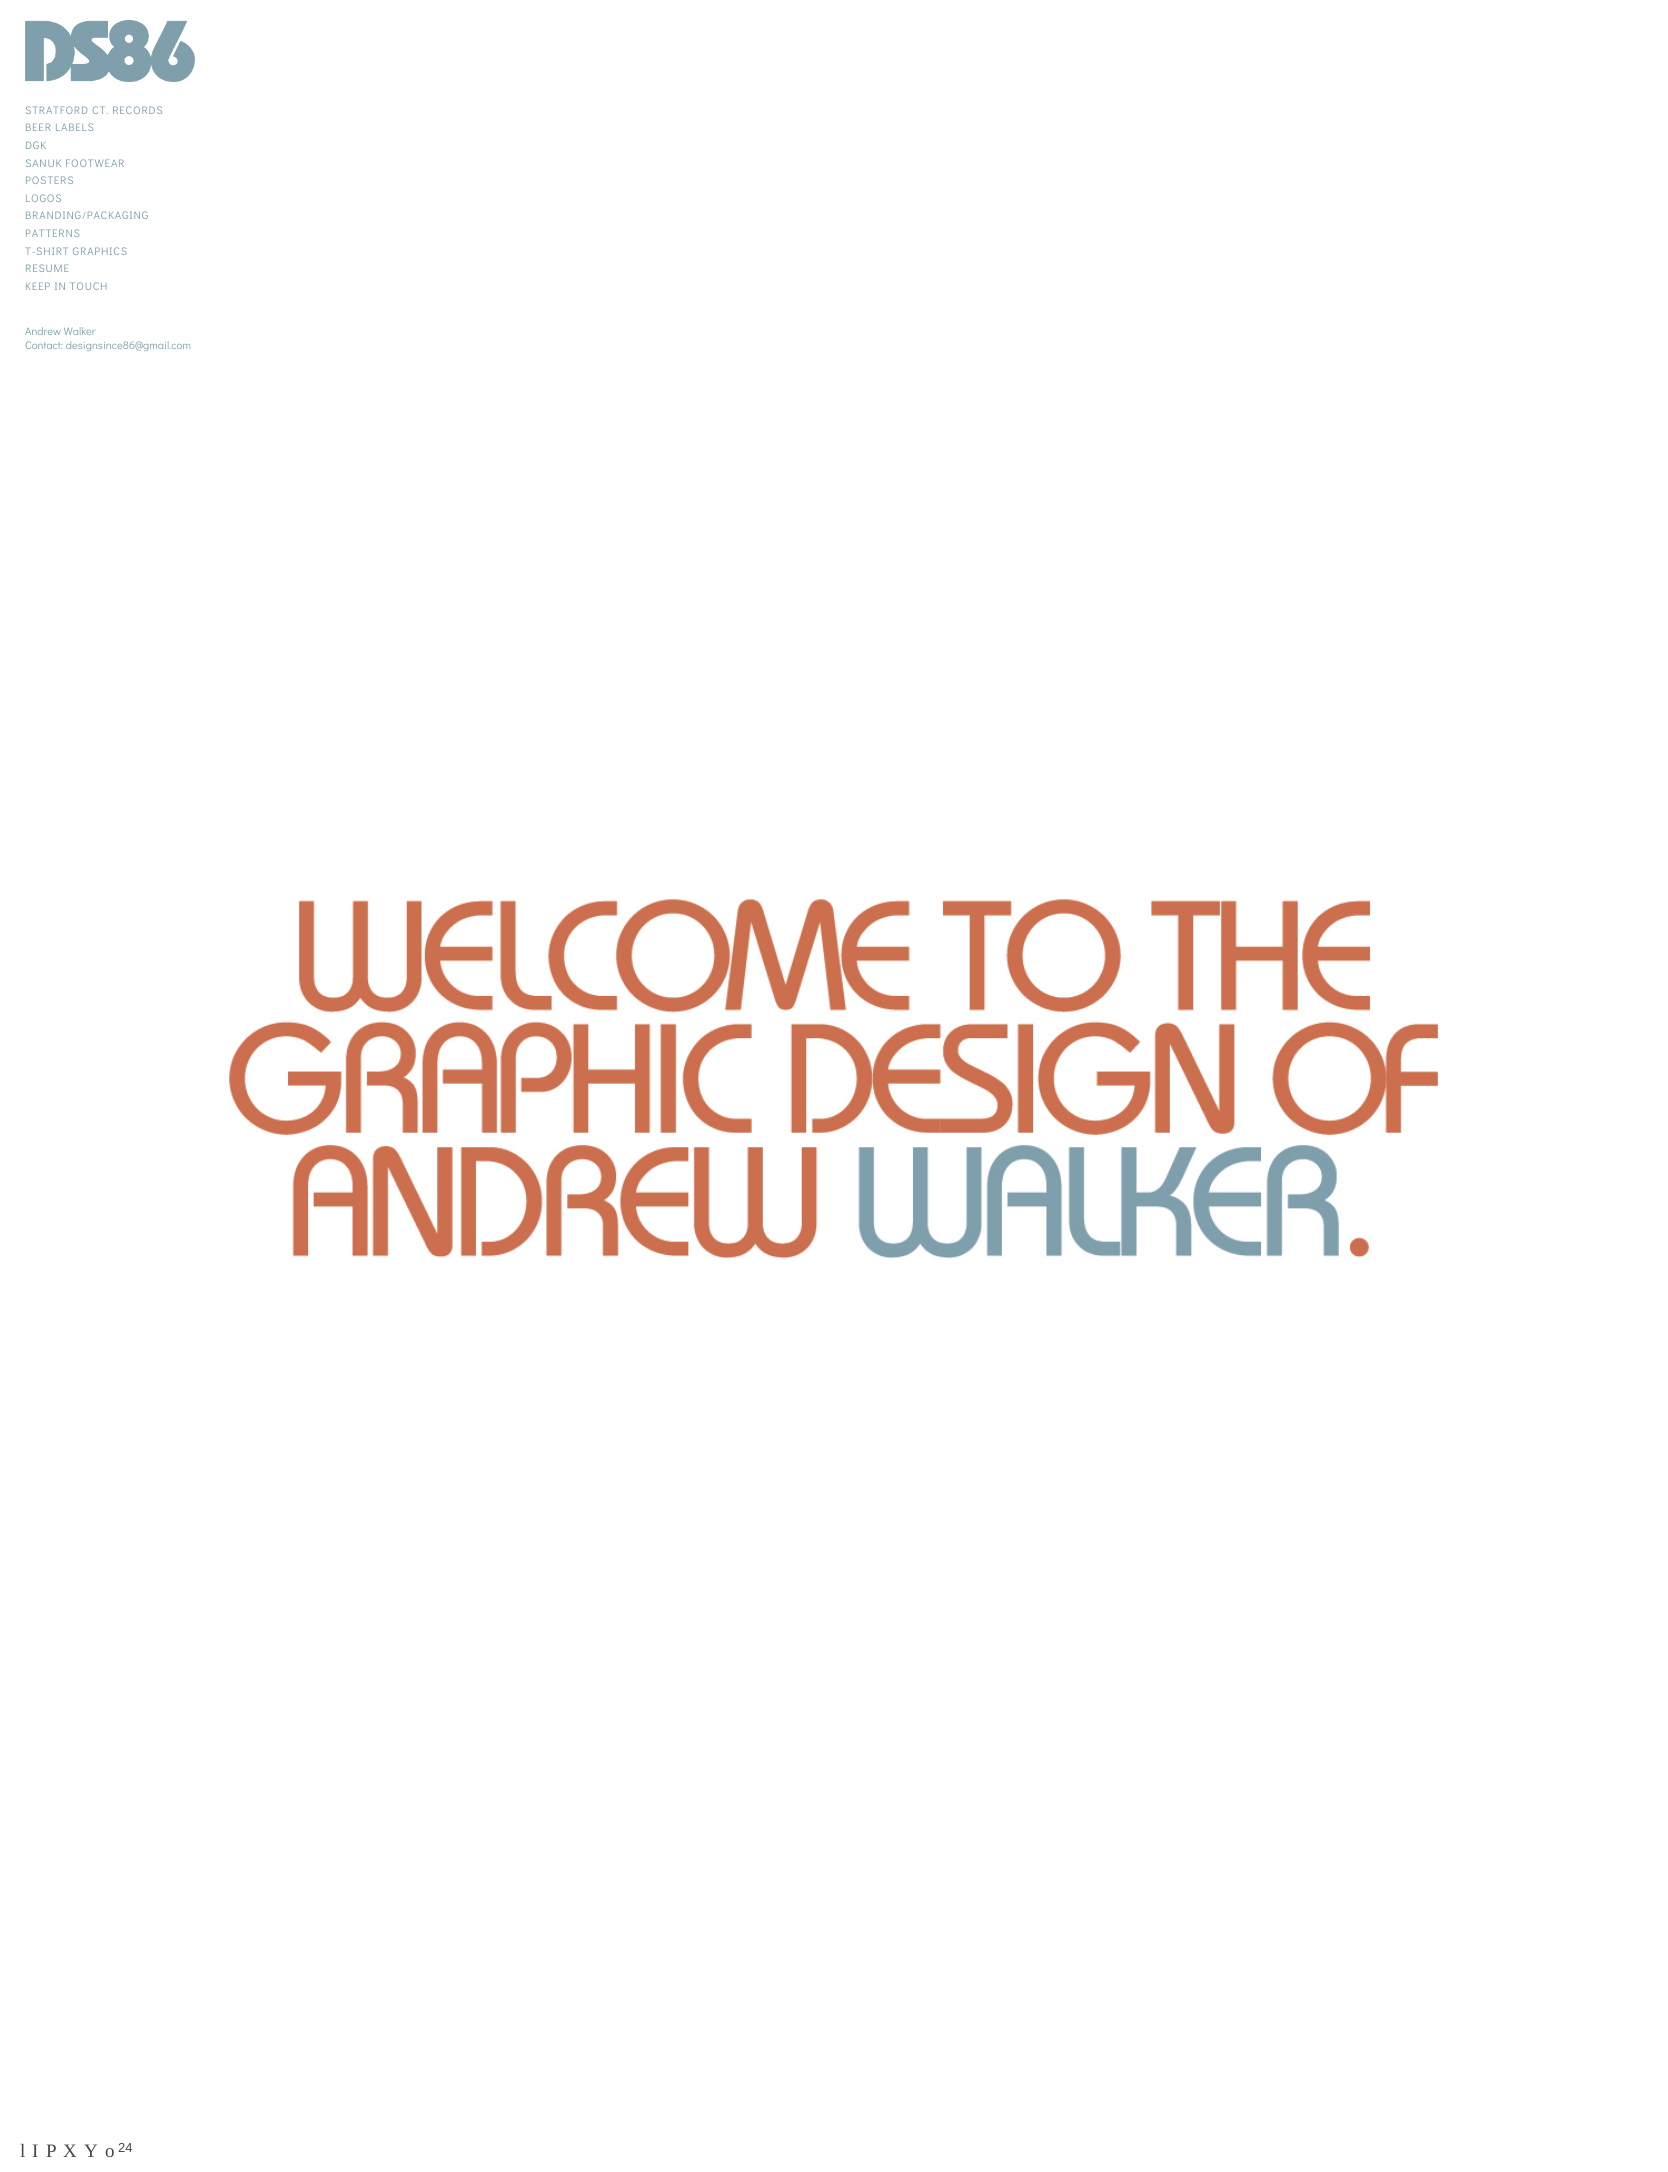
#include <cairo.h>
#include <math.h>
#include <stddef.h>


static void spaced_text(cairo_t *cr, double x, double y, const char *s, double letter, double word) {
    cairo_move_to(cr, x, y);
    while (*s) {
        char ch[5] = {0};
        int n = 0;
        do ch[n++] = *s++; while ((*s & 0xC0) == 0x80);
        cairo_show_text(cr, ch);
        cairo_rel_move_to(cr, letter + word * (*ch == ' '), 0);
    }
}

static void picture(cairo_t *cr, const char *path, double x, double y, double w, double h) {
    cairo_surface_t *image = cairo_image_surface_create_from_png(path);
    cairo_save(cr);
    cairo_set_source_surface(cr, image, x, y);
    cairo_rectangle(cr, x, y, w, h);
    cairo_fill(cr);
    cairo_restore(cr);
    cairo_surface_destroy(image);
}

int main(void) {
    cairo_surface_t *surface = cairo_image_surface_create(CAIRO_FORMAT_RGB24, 1668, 2172);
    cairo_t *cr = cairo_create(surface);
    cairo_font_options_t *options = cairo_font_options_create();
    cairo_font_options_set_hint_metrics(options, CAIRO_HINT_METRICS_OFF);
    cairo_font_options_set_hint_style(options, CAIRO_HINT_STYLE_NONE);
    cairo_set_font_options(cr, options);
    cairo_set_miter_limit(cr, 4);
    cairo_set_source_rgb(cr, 1, 1, 1);
    cairo_paint(cr);
    picture(cr, "img1.png", 25, 20, 170, 62);
    cairo_select_font_face(cr, "Didact Gothic", CAIRO_FONT_SLANT_NORMAL, CAIRO_FONT_WEIGHT_NORMAL);
    cairo_set_font_size(cr, 11);
    cairo_set_source_rgb(cr, 0.494, 0.62, 0.675);
    spaced_text(cr, 25, 114, "STRATFORD CT. RECORDS", 0.75, 0);
    spaced_text(cr, 25, 131, "BEER LABELS", 0.75, 0);
    spaced_text(cr, 25, 149, "DGK", 0.75, 0);
    spaced_text(cr, 25, 167, "SANUK FOOTWEAR", 0.75, 0);
    spaced_text(cr, 25, 184, "POSTERS", 0.75, 0);
    spaced_text(cr, 25, 202, "LOGOS", 0.75, 0);
    spaced_text(cr, 25, 219, "BRANDING/PACKAGING", 0.75, 0);
    spaced_text(cr, 25, 237, "PATTERNS", 0.75, 0);
    spaced_text(cr, 25, 255, "T-SHIRT GRAPHICS", 0.75, 0);
    spaced_text(cr, 25, 272, "RESUME", 0.75, 0);
    spaced_text(cr, 25, 290, "KEEP IN TOUCH", 0.75, 0);
    cairo_move_to(cr, 25, 335);
    cairo_show_text(cr, "Andrew Walker");
    cairo_move_to(cr, 25, 349);
    cairo_show_text(cr, "Contact: designsince86@gmail.com");
    picture(cr, "img2.png", 229, 898, 1212, 361);
    cairo_select_font_face(cr, "Liberation Serif", CAIRO_FONT_SLANT_NORMAL, CAIRO_FONT_WEIGHT_NORMAL);
    cairo_set_font_size(cr, 19);
    cairo_set_source_rgb(cr, 0.278, 0.278, 0.278);
    cairo_move_to(cr, 20, 2157);
    cairo_show_text(cr, "l");
    cairo_move_to(cr, 32, 2157);
    cairo_show_text(cr, "I");
    cairo_move_to(cr, 46, 2157);
    cairo_show_text(cr, "P");
    cairo_move_to(cr, 63, 2157);
    cairo_show_text(cr, "X");
    cairo_move_to(cr, 84, 2157);
    cairo_show_text(cr, "Y");
    cairo_select_font_face(cr, "Liberation Sans", CAIRO_FONT_SLANT_NORMAL, CAIRO_FONT_WEIGHT_NORMAL);
    cairo_set_font_size(cr, 13);
    cairo_move_to(cr, 118, 2152);
    cairo_show_text(cr, "24");
    cairo_select_font_face(cr, "Liberation Serif", CAIRO_FONT_SLANT_NORMAL, CAIRO_FONT_WEIGHT_NORMAL);
    cairo_set_font_size(cr, 19);
    cairo_move_to(cr, 105, 2157);
    cairo_show_text(cr, "o");
    cairo_surface_write_to_png(surface, "page.png");
    cairo_font_options_destroy(options);
    cairo_destroy(cr);
    cairo_surface_destroy(surface);
    return 0;
}
